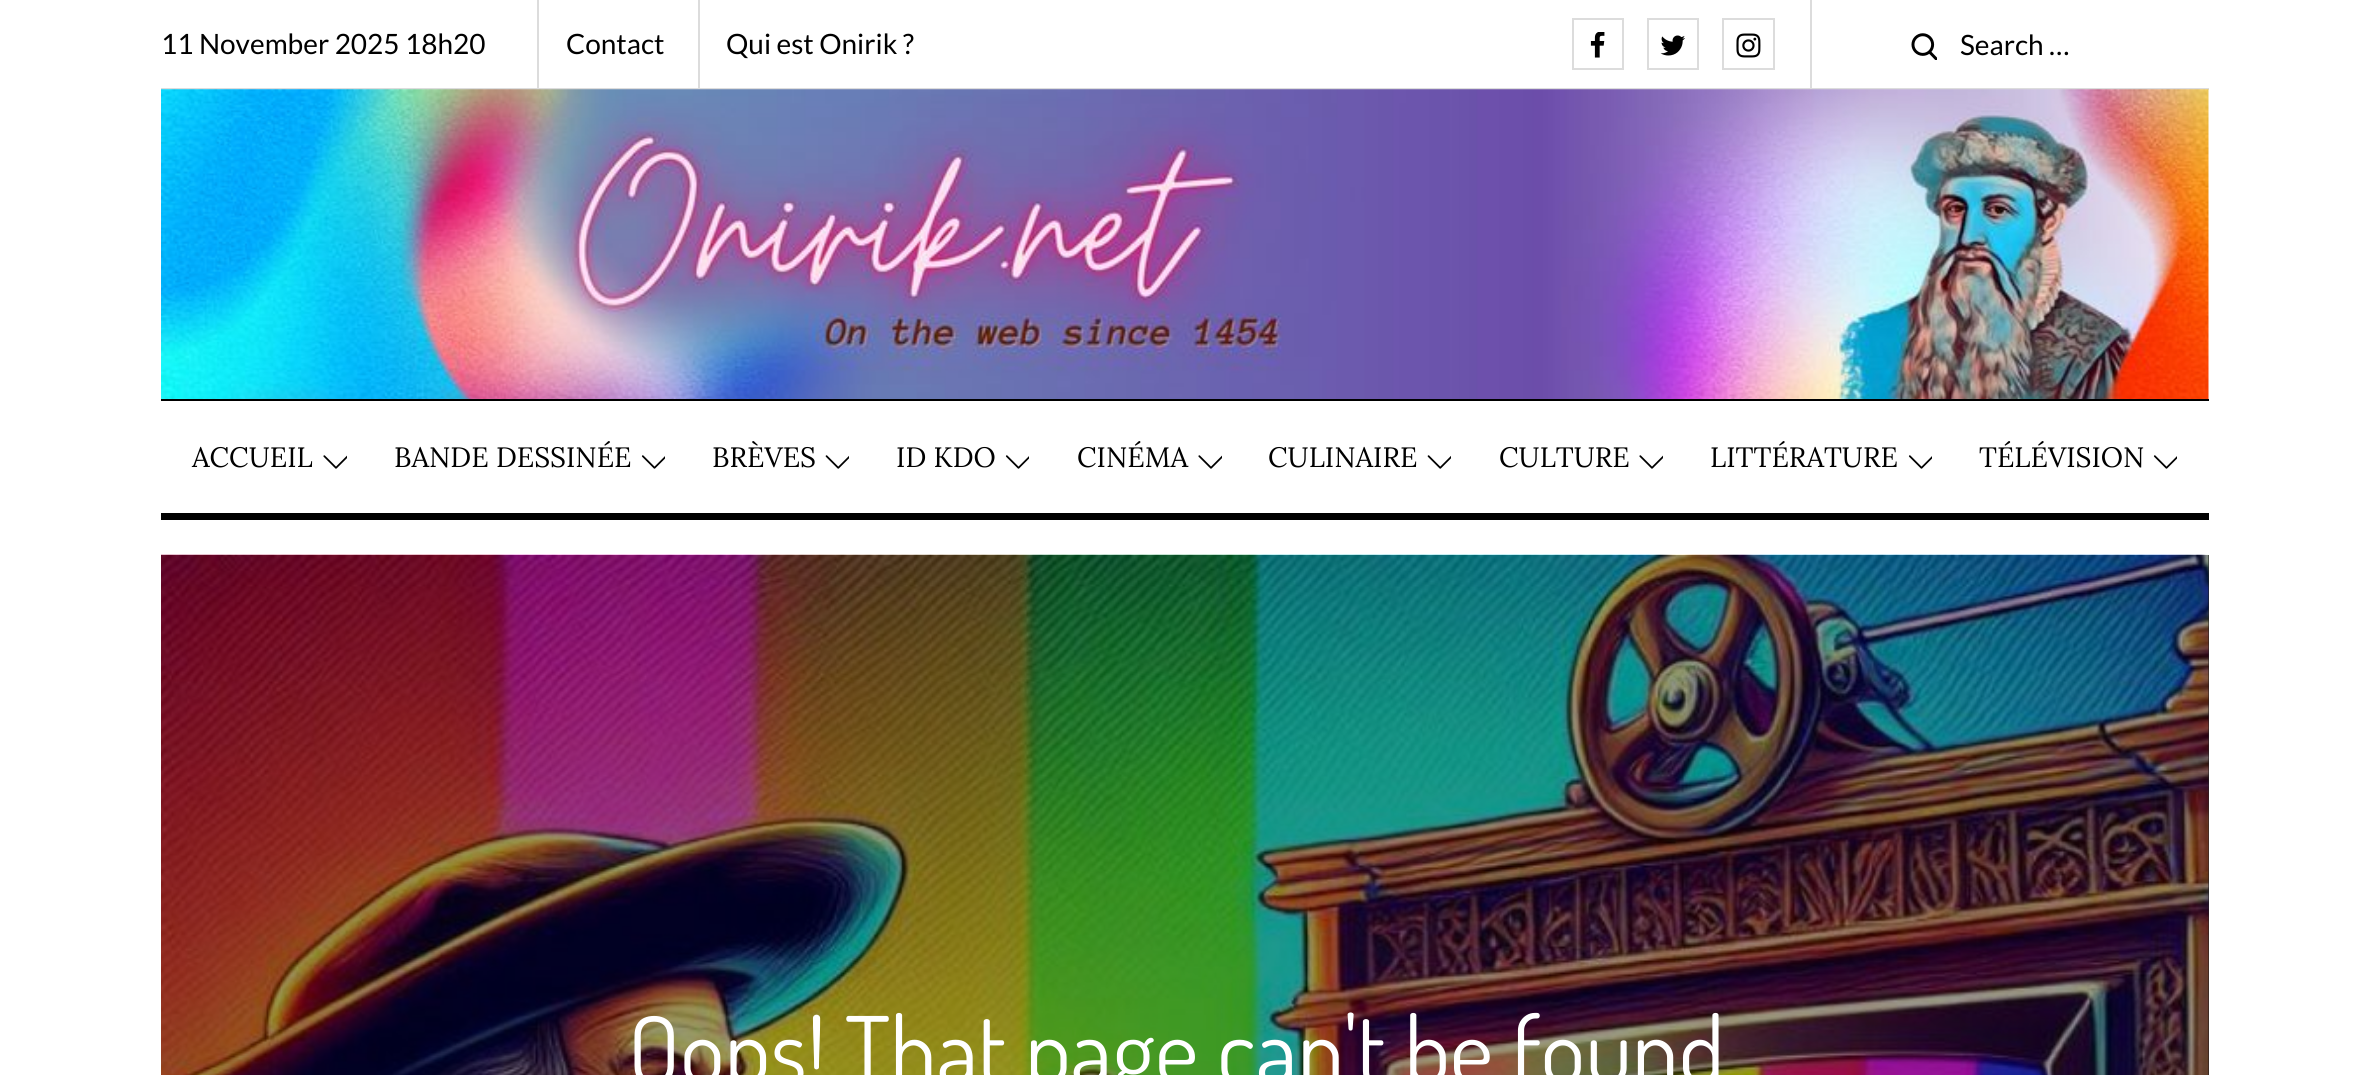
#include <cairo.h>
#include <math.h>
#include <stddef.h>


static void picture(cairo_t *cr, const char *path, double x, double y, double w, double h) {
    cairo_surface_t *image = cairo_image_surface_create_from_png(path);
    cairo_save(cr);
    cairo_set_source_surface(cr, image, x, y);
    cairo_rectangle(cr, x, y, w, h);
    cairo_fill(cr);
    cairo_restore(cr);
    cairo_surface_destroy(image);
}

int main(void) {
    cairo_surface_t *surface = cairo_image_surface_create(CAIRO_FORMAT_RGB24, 2369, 1075);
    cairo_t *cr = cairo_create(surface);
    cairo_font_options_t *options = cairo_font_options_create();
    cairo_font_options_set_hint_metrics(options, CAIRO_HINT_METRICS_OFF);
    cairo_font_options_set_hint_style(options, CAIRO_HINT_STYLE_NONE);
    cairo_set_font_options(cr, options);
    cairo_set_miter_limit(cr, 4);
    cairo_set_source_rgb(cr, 1, 1, 1);
    cairo_paint(cr);
    cairo_set_source_rgb(cr, 0.863, 0.863, 0.863);
    cairo_rectangle(cr, 161, 88, 2048, 2);
    cairo_fill(cr);
    cairo_select_font_face(cr, "Lato", CAIRO_FONT_SLANT_NORMAL, CAIRO_FONT_WEIGHT_NORMAL);
    cairo_set_font_size(cr, 28);
    cairo_set_source_rgb(cr, 0, 0, 0);
    cairo_move_to(cr, 161, 54);
    cairo_show_text(cr, "11 November 2025 18h20");
    cairo_set_source_rgb(cr, 0.863, 0.863, 0.863);
    cairo_rectangle(cr, 537, 0, 2, 88);
    cairo_fill(cr);
    cairo_set_source_rgb(cr, 0, 0, 0);
    cairo_move_to(cr, 566, 54);
    cairo_show_text(cr, "Contact");
    cairo_set_source_rgb(cr, 0.863, 0.863, 0.863);
    cairo_rectangle(cr, 698, 0, 2, 88);
    cairo_fill(cr);
    cairo_set_source_rgb(cr, 0, 0, 0);
    cairo_move_to(cr, 726, 54);
    cairo_show_text(cr, "Qui est Onirik ?");
    cairo_rectangle(cr, 1573, 19, 50, 50);
    cairo_set_source_rgb(cr, 0.863, 0.863, 0.863);
    cairo_stroke(cr);
    picture(cr, "img1.png", 1590, 32, 15, 26);
    cairo_rectangle(cr, 1648, 19, 50, 50);
    cairo_stroke(cr);
    picture(cr, "img2.png", 1660, 35, 25, 21);
    cairo_rectangle(cr, 1723, 19, 51, 50);
    cairo_stroke(cr);
    picture(cr, "img3.png", 1736, 33, 25, 25);
    cairo_rectangle(cr, 1810, 0, 2, 88);
    cairo_fill(cr);
    picture(cr, "img4.png", 1911, 33, 26, 27);
    cairo_set_source_rgb(cr, 0, 0, 0);
    cairo_move_to(cr, 1960, 55);
    cairo_show_text(cr, "Search …");
    picture(cr, "img5.png", 161, 89, 2048, 310);
    cairo_rectangle(cr, 161, 399, 2048, 2);
    cairo_fill(cr);
    cairo_rectangle(cr, 161, 513, 2048, 7);
    cairo_fill(cr);
    cairo_select_font_face(cr, "Lora", CAIRO_FONT_SLANT_NORMAL, CAIRO_FONT_WEIGHT_NORMAL);
    cairo_move_to(cr, 192, 467);
    cairo_show_text(cr, "ACCUEIL");
    picture(cr, "img6.png", 323, 455, 24, 14);
    cairo_move_to(cr, 394, 467);
    cairo_show_text(cr, "BANDE DESSINÉE");
    picture(cr, "img7.png", 641, 455, 24, 14);
    cairo_move_to(cr, 712, 467);
    cairo_show_text(cr, "BRÈVES");
    picture(cr, "img8.png", 825, 455, 24, 14);
    cairo_move_to(cr, 896, 467);
    cairo_show_text(cr, "ID KDO");
    picture(cr, "img7.png", 1005, 455, 24, 14);
    cairo_move_to(cr, 1077, 467);
    cairo_show_text(cr, "CINÉMA");
    picture(cr, "img6.png", 1198, 455, 24, 14);
    cairo_move_to(cr, 1268, 467);
    cairo_show_text(cr, "CULINAIRE");
    picture(cr, "img8.png", 1427, 455, 24, 14);
    cairo_move_to(cr, 1499, 467);
    cairo_show_text(cr, "CULTURE");
    picture(cr, "img6.png", 1639, 455, 24, 14);
    cairo_move_to(cr, 1710, 467);
    cairo_show_text(cr, "LITTÉRATURE");
    picture(cr, "img7.png", 1908, 455, 24, 14);
    cairo_move_to(cr, 1979, 467);
    cairo_show_text(cr, "TÉLÉVISION");
    picture(cr, "img7.png", 2153, 455, 24, 14);
    cairo_set_source_rgb(cr, 0.122, 0.122, 0.122);
    cairo_rectangle(cr, 2208, 555, 1, 520);
    cairo_fill(cr);
    picture(cr, "img9.png", 161, 554, 2048, 521);
    cairo_select_font_face(cr, "Dosis", CAIRO_FONT_SLANT_NORMAL, CAIRO_FONT_WEIGHT_NORMAL);
    cairo_set_font_size(cr, 94.5);
    cairo_set_source_rgb(cr, 1, 1, 1);
    cairo_move_to(cr, 628, 1085);
    cairo_show_text(cr, "Oops! That page can't be found");
    cairo_surface_write_to_png(surface, "page.png");
    cairo_font_options_destroy(options);
    cairo_destroy(cr);
    cairo_surface_destroy(surface);
    return 0;
}
